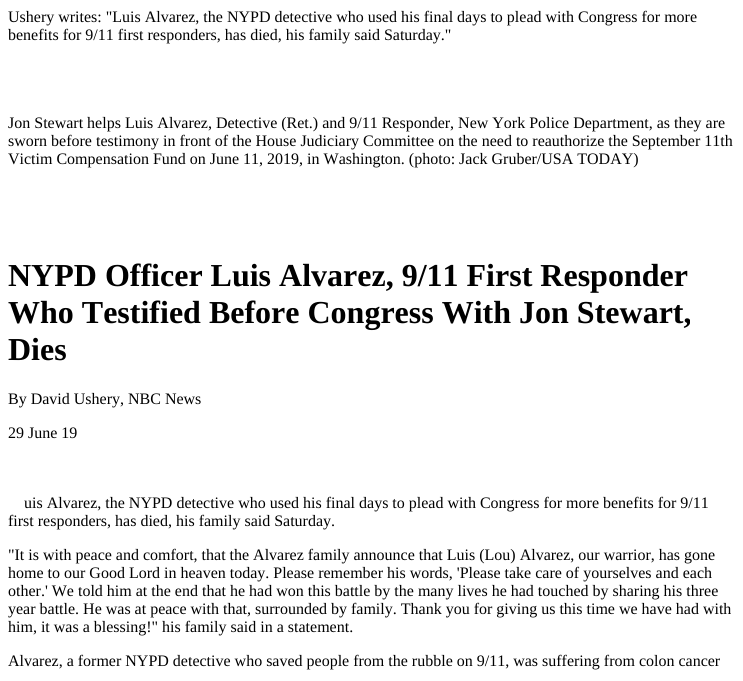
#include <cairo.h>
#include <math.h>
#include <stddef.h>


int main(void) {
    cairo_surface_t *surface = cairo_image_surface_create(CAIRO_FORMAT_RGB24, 743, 681);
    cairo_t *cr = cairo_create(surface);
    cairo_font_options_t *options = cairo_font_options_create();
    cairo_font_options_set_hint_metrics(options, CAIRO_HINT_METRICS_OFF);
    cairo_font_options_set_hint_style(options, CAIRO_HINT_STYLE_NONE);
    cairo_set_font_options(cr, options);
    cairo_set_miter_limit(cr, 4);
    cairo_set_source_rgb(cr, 1, 1, 1);
    cairo_paint(cr);
    cairo_select_font_face(cr, "Liberation Serif", CAIRO_FONT_SLANT_NORMAL, CAIRO_FONT_WEIGHT_NORMAL);
    cairo_set_font_size(cr, 16);
    cairo_set_source_rgb(cr, 0, 0, 0);
    cairo_move_to(cr, 8, 22);
    cairo_show_text(cr, "Ushery writes: \"Luis Alvarez, the NYPD detective who used his final days to plead with Congress for more");
    cairo_move_to(cr, 8, 40);
    cairo_show_text(cr, "benefits for 9/11 first responders, has died, his family said Saturday.\"");
    cairo_move_to(cr, 8, 128);
    cairo_show_text(cr, "Jon Stewart helps Luis Alvarez, Detective (Ret.) and 9/11 Responder, New York Police Department, as they are");
    cairo_move_to(cr, 8, 146);
    cairo_show_text(cr, "sworn before testimony in front of the House Judiciary Committee on the need to reauthorize the September 11th");
    cairo_move_to(cr, 8, 164);
    cairo_show_text(cr, "Victim Compensation Fund on June 11, 2019, in Washington. (photo: Jack Gruber/USA TODAY)");
    cairo_select_font_face(cr, "Liberation Serif", CAIRO_FONT_SLANT_NORMAL, CAIRO_FONT_WEIGHT_BOLD);
    cairo_set_font_size(cr, 32);
    cairo_move_to(cr, 8, 286);
    cairo_show_text(cr, "NYPD Officer Luis Alvarez, 9/11 First Responder");
    cairo_move_to(cr, 8, 323);
    cairo_show_text(cr, "Who Testified Before Congress With Jon Stewart,");
    cairo_move_to(cr, 8, 360);
    cairo_show_text(cr, "Dies");
    cairo_select_font_face(cr, "Liberation Serif", CAIRO_FONT_SLANT_NORMAL, CAIRO_FONT_WEIGHT_NORMAL);
    cairo_set_font_size(cr, 16);
    cairo_move_to(cr, 8, 404);
    cairo_show_text(cr, "By David Ushery, NBC News");
    cairo_move_to(cr, 8, 438);
    cairo_show_text(cr, "29 June 19");
    cairo_move_to(cr, 24, 508);
    cairo_show_text(cr, "uis Alvarez, the NYPD detective who used his final days to plead with Congress for more benefits for 9/11");
    cairo_move_to(cr, 8, 526);
    cairo_show_text(cr, "first responders, has died, his family said Saturday.");
    cairo_move_to(cr, 8, 560);
    cairo_show_text(cr, "\"It is with peace and comfort, that the Alvarez family announce that Luis (Lou) Alvarez, our warrior, has gone");
    cairo_move_to(cr, 8, 578);
    cairo_show_text(cr, "home to our Good Lord in heaven today. Please remember his words, 'Please take care of yourselves and each");
    cairo_move_to(cr, 8, 596);
    cairo_show_text(cr, "other.' We told him at the end that he had won this battle by the many lives he had touched by sharing his three");
    cairo_move_to(cr, 8, 614);
    cairo_show_text(cr, "year battle. He was at peace with that, surrounded by family. Thank you for giving us this time we have had with");
    cairo_move_to(cr, 8, 632);
    cairo_show_text(cr, "him, it was a blessing!\" his family said in a statement.");
    cairo_move_to(cr, 8, 666);
    cairo_show_text(cr, "Alvarez, a former NYPD detective who saved people from the rubble on 9/11, was suffering from colon cancer");
    cairo_surface_write_to_png(surface, "page.png");
    cairo_font_options_destroy(options);
    cairo_destroy(cr);
    cairo_surface_destroy(surface);
    return 0;
}
